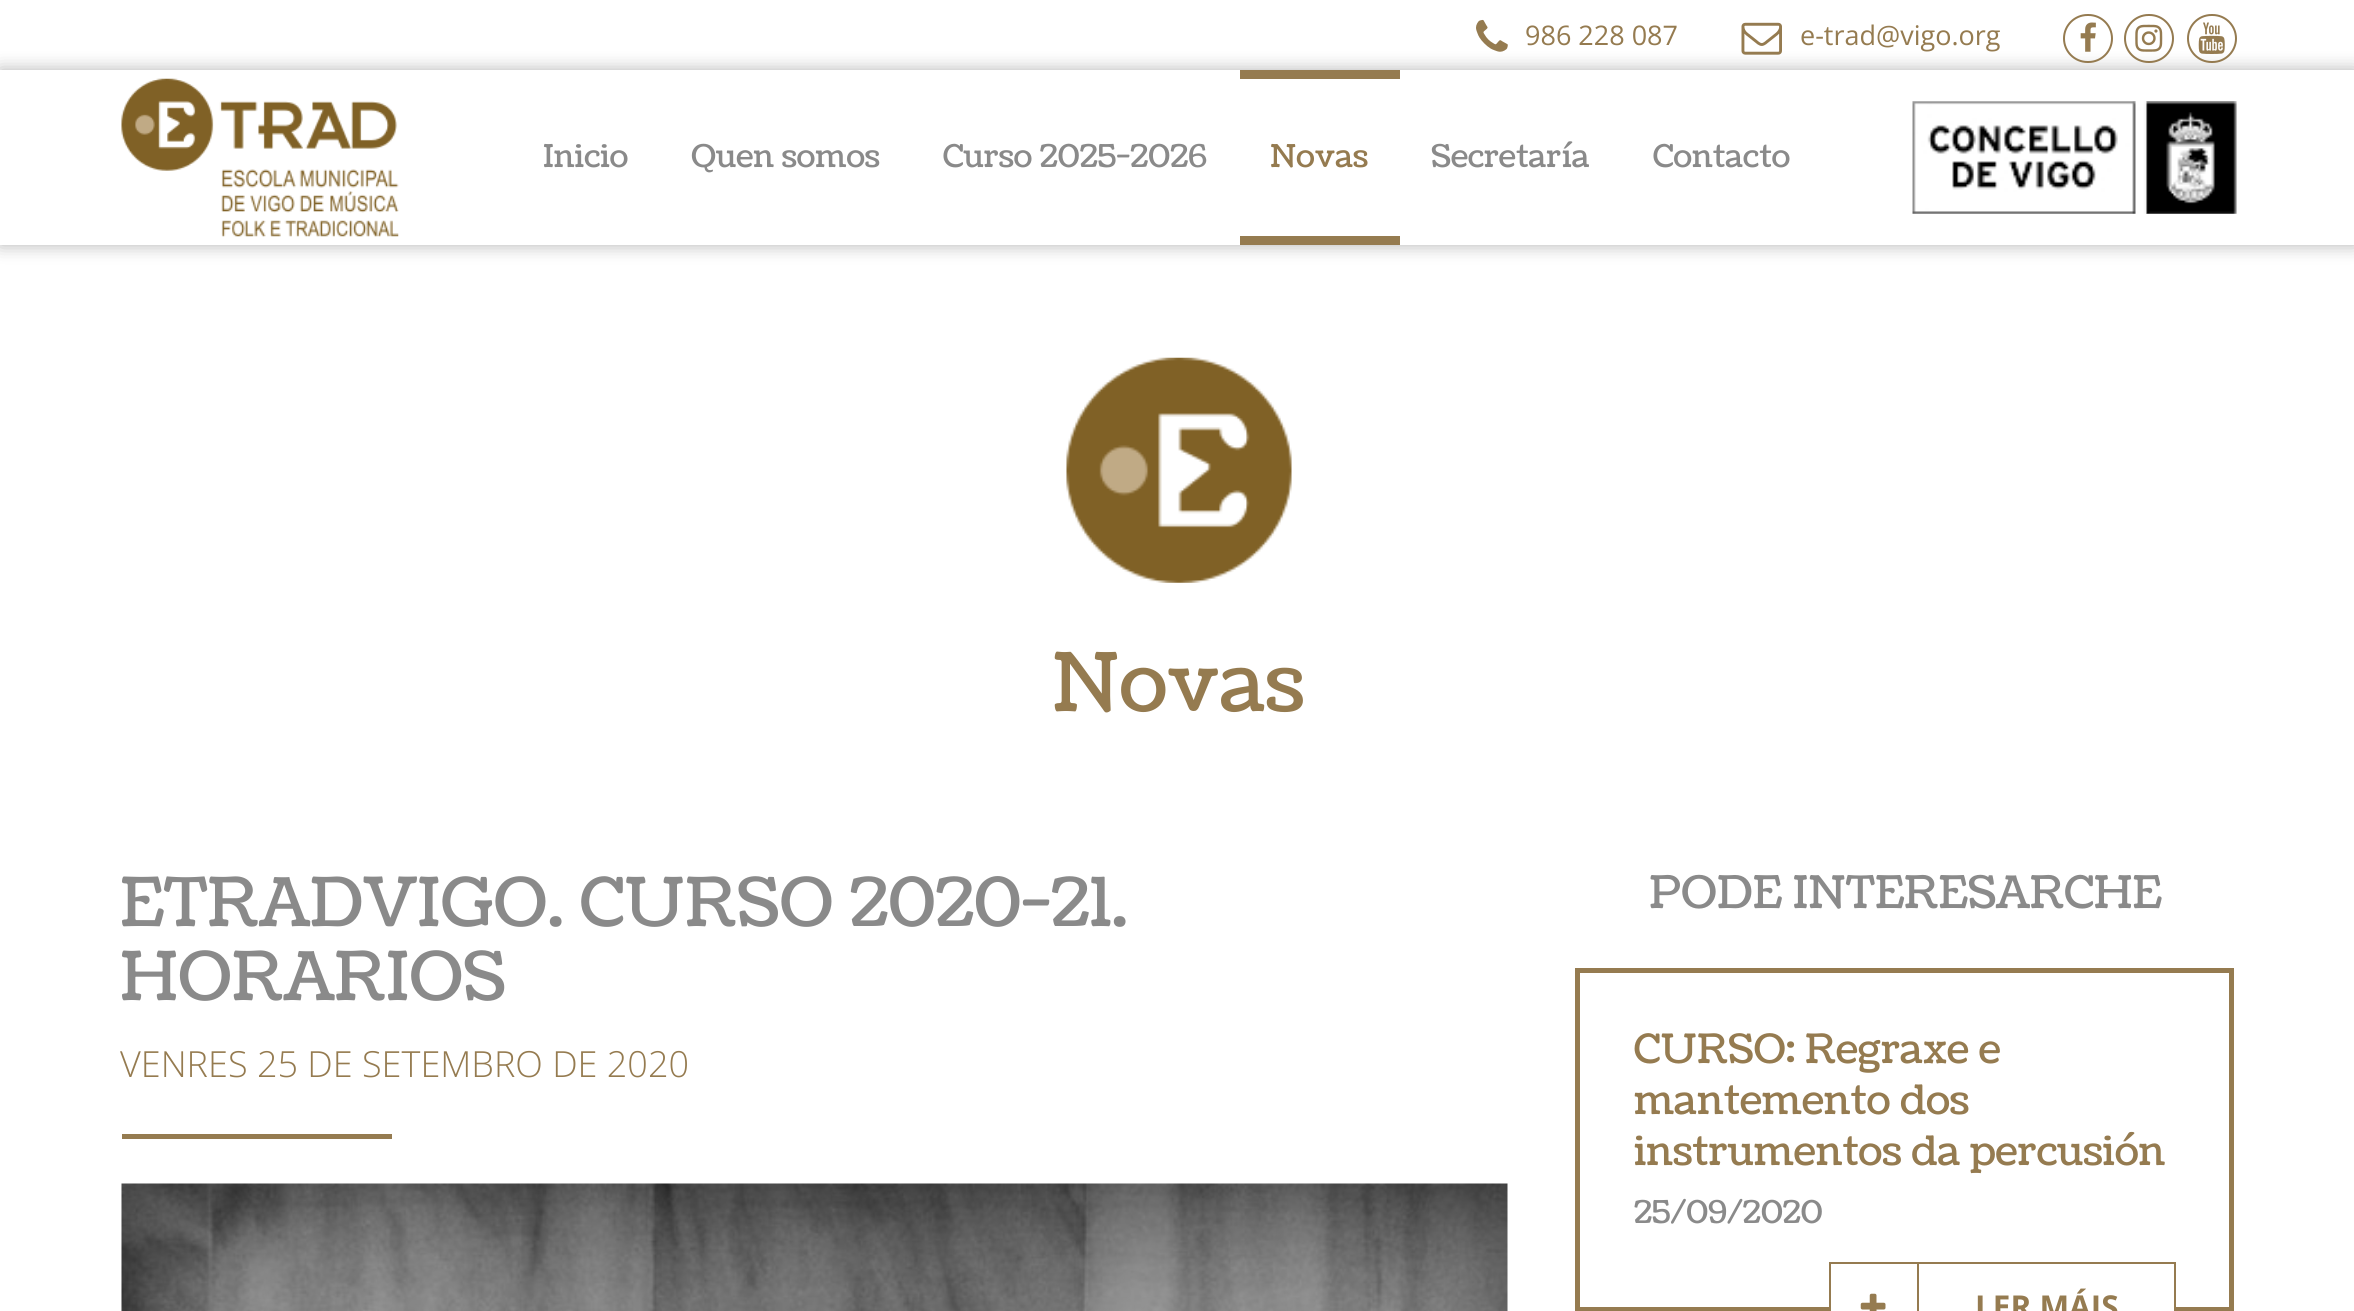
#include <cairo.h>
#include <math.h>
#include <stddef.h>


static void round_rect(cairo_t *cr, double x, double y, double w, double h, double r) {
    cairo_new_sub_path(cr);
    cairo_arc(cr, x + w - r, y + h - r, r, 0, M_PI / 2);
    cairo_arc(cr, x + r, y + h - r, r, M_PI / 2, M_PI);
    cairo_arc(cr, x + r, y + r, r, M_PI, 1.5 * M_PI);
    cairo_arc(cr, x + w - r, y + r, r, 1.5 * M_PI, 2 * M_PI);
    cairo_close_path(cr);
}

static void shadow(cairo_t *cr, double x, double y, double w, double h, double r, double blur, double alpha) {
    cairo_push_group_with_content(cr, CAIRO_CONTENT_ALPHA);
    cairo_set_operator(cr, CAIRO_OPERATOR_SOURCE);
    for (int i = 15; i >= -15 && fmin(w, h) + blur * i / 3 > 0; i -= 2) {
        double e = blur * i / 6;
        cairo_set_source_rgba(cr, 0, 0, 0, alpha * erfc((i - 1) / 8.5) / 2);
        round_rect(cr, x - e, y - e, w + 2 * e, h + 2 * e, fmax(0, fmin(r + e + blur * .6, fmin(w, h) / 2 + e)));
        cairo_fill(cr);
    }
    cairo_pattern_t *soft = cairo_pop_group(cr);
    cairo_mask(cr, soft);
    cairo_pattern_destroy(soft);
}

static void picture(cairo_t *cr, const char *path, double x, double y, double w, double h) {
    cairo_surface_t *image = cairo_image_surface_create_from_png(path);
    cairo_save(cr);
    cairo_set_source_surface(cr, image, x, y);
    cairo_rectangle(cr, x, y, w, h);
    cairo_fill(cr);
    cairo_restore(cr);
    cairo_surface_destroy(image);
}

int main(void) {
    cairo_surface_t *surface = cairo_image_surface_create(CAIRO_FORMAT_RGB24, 2354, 1311);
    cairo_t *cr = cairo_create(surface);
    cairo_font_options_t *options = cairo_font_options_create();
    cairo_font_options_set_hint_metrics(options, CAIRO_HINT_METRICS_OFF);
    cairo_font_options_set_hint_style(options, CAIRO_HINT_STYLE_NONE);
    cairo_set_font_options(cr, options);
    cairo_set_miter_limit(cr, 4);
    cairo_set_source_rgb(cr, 1, 1, 1);
    cairo_paint(cr);
    cairo_save(cr);
    cairo_set_fill_rule(cr, CAIRO_FILL_RULE_EVEN_ODD);
    cairo_new_path(cr);
    cairo_move_to(cr, 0, 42);
    cairo_line_to(cr, 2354, 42);
    cairo_line_to(cr, 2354, 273);
    cairo_line_to(cr, 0, 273);
    cairo_close_path(cr);
    cairo_move_to(cr, 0, 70);
    cairo_line_to(cr, 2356, 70);
    cairo_line_to(cr, 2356, 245);
    cairo_line_to(cr, 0, 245);
    cairo_close_path(cr);
    cairo_clip(cr);
    cairo_set_source_rgb(cr, 0, 0, 0);
    shadow(cr, 0, 70, 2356, 175, 0, 9, 0.3);
    cairo_restore(cr);
    picture(cr, "img1.png", 1476, 19, 32, 33);
    cairo_select_font_face(cr, "Open Sans", CAIRO_FONT_SLANT_NORMAL, CAIRO_FONT_WEIGHT_NORMAL);
    cairo_set_font_size(cr, 27);
    cairo_set_source_rgb(cr, 0.584, 0.482, 0.314);
    cairo_move_to(cr, 1525, 45);
    cairo_show_text(cr, "986 228 087");
    picture(cr, "img2.png", 1741, 22, 41, 33);
    cairo_move_to(cr, 1800, 45);
    cairo_show_text(cr, "e-trad@vigo.org");
    round_rect(cr, 2064, 15, 48, 47, 23.5);
    cairo_stroke(cr);
    picture(cr, "img3.png", 2080, 22, 16, 30);
    round_rect(cr, 2125, 15, 48, 47, 23.5);
    cairo_stroke(cr);
    picture(cr, "img4.png", 2135, 24, 28, 28);
    round_rect(cr, 2188, 15, 48, 47, 23.5);
    cairo_stroke(cr);
    picture(cr, "img5.png", 2198, 22, 27, 32);
    picture(cr, "img6.png", 121, 78, 278, 159);
    cairo_select_font_face(cr, "Coustard", CAIRO_FONT_SLANT_NORMAL, CAIRO_FONT_WEIGHT_NORMAL);
    cairo_set_font_size(cr, 31.5);
    cairo_set_source_rgb(cr, 0.541, 0.541, 0.541);
    cairo_move_to(cr, 543, 167);
    cairo_show_text(cr, "Inicio");
    cairo_move_to(cr, 691, 167);
    cairo_show_text(cr, "Quen somos");
    cairo_move_to(cr, 943, 167);
    cairo_show_text(cr, "Curso 2025-2026");
    cairo_set_source_rgb(cr, 0.584, 0.482, 0.314);
    cairo_rectangle(cr, 1240, 70, 160, 9);
    cairo_fill(cr);
    cairo_rectangle(cr, 1240, 236, 160, 9);
    cairo_fill(cr);
    cairo_move_to(cr, 1270, 167);
    cairo_show_text(cr, "Novas");
    cairo_set_source_rgb(cr, 0.541, 0.541, 0.541);
    cairo_move_to(cr, 1431, 167);
    cairo_show_text(cr, "Secretaría");
    cairo_move_to(cr, 1653, 167);
    cairo_show_text(cr, "Contacto");
    picture(cr, "img7.png", 1912, 101, 325, 113);
    picture(cr, "img8.png", 1066, 357, 226, 226);
    cairo_set_font_size(cr, 81);
    cairo_set_source_rgb(cr, 0.584, 0.482, 0.314);
    cairo_move_to(cr, 1052, 711);
    cairo_show_text(cr, "Novas");
    cairo_set_font_size(cr, 67.5);
    cairo_set_source_rgb(cr, 0.541, 0.541, 0.541);
    cairo_move_to(cr, 120, 926);
    cairo_show_text(cr, "ETRADVIGO. CURSO 2020-21.");
    cairo_move_to(cr, 120, 1000);
    cairo_show_text(cr, "HORARIOS");
    cairo_select_font_face(cr, "Open Sans Light", CAIRO_FONT_SLANT_NORMAL, CAIRO_FONT_WEIGHT_NORMAL);
    cairo_set_font_size(cr, 36);
    cairo_set_source_rgb(cr, 0.584, 0.482, 0.314);
    cairo_move_to(cr, 120, 1077);
    cairo_show_text(cr, "VENRES 25 DE SETEMBRO DE 2020");
    cairo_rectangle(cr, 122, 1134, 270, 5);
    cairo_fill(cr);
    picture(cr, "img9.png", 121, 1183, 1387, 128);
    cairo_select_font_face(cr, "Coustard", CAIRO_FONT_SLANT_NORMAL, CAIRO_FONT_WEIGHT_NORMAL);
    cairo_set_font_size(cr, 45);
    cairo_set_source_rgb(cr, 0.541, 0.541, 0.541);
    cairo_move_to(cr, 1649, 908);
    cairo_show_text(cr, "PODE INTERESARCHE");
    cairo_rectangle(cr, 1577.5, 970.5, 654, 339);
    cairo_set_source_rgb(cr, 0.584, 0.482, 0.314);
    cairo_set_line_width(cr, 5);
    cairo_stroke(cr);
    cairo_set_font_size(cr, 40.5);
    cairo_move_to(cr, 1634, 1063);
    cairo_show_text(cr, "CURSO: Regraxe e");
    cairo_move_to(cr, 1634, 1114);
    cairo_show_text(cr, "mantemento dos");
    cairo_move_to(cr, 1634, 1165);
    cairo_show_text(cr, "instrumentos da percusión");
    cairo_set_font_size(cr, 31.5);
    cairo_set_source_rgb(cr, 0.541, 0.541, 0.541);
    cairo_move_to(cr, 1634, 1223);
    cairo_show_text(cr, "25/09/2020");
    cairo_set_source_rgb(cr, 1, 1, 1);
    cairo_rectangle(cr, 1831, 1307, 343, 4);
    cairo_fill(cr);
    cairo_rectangle(cr, 1830, 1263, 88, 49);
    cairo_set_source_rgb(cr, 0.584, 0.482, 0.314);
    cairo_set_line_width(cr, 2);
    cairo_stroke(cr);
    picture(cr, "img10.png", 1860, 1293, 26, 18);
    cairo_rectangle(cr, 1919, 1262, 257, 2);
    cairo_fill(cr);
    cairo_rectangle(cr, 2174, 1262, 2, 49);
    cairo_fill(cr);
    cairo_select_font_face(cr, "Open Sans", CAIRO_FONT_SLANT_NORMAL, CAIRO_FONT_WEIGHT_BOLD);
    cairo_move_to(cr, 1975, 1318);
    cairo_show_text(cr, "LER MÁIS");
    cairo_surface_write_to_png(surface, "page.png");
    cairo_font_options_destroy(options);
    cairo_destroy(cr);
    cairo_surface_destroy(surface);
    return 0;
}
